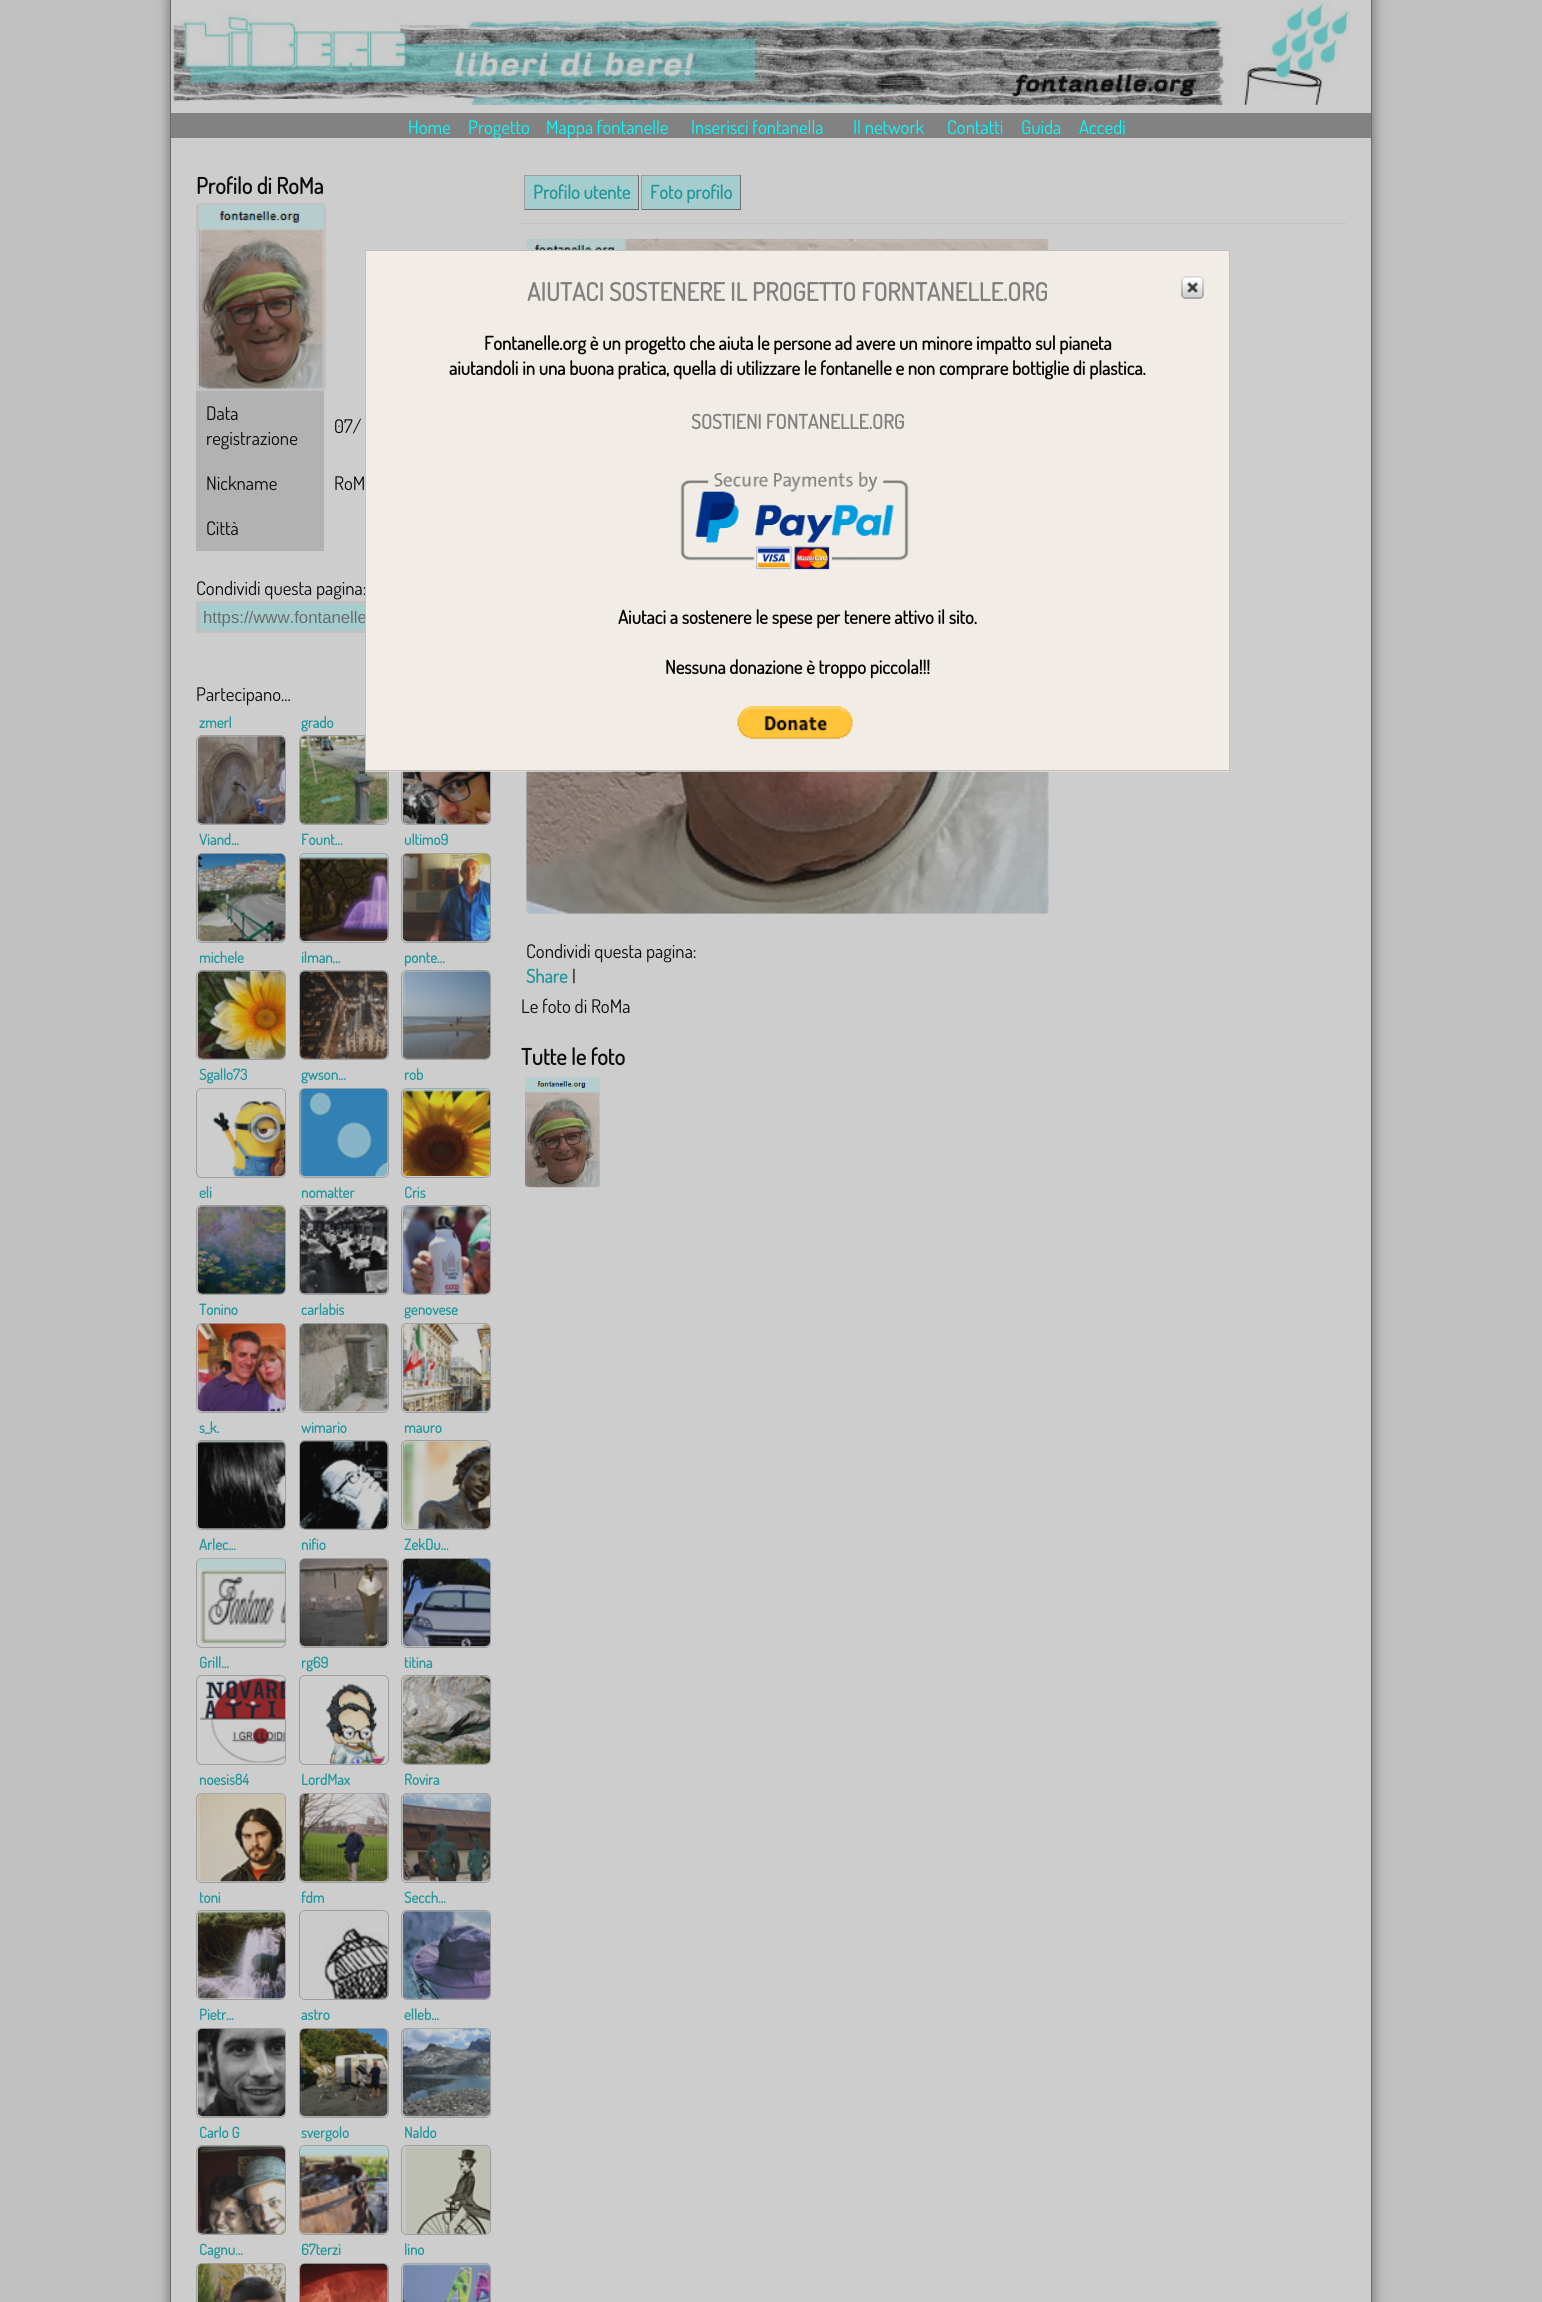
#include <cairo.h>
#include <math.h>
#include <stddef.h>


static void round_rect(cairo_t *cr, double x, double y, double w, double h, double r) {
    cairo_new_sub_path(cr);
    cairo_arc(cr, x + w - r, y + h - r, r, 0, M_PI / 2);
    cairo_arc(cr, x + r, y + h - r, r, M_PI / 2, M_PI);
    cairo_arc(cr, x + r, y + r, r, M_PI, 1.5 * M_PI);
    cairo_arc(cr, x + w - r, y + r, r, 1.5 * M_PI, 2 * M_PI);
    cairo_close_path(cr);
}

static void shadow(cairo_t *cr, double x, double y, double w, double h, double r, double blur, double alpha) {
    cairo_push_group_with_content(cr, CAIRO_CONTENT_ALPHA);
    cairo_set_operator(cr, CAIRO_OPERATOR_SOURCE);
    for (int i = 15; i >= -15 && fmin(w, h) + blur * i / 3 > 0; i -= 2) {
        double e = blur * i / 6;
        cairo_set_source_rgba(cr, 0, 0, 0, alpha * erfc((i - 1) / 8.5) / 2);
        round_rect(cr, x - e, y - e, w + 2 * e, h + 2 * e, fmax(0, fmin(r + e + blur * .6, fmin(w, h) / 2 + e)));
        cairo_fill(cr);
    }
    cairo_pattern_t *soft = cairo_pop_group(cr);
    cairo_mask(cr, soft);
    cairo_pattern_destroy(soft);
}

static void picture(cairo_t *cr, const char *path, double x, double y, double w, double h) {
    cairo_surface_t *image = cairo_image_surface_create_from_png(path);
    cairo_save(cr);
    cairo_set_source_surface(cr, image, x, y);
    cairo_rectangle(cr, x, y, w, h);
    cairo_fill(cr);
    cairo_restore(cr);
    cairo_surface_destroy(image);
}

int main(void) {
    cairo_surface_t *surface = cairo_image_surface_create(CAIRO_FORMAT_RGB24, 1542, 2302);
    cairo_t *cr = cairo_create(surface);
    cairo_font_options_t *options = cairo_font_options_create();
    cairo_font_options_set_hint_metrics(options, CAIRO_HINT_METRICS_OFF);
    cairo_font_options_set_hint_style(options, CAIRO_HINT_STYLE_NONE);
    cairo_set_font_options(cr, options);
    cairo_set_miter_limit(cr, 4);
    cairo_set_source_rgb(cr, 0.753, 0.753, 0.753);
    cairo_paint(cr);
    cairo_set_source_rgb(cr, 0.424, 0.424, 0.424);
    shadow(cr, 170, 0, 1203, 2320, 0, 6, 1);
    cairo_set_source_rgb(cr, 0.804, 0.804, 0.804);
    cairo_rectangle(cr, 171, 0, 1200, 2302);
    cairo_fill(cr);
    cairo_set_source_rgb(cr, 0.424, 0.424, 0.424);
    cairo_rectangle(cr, 1371, 0, 1, 2302);
    cairo_fill(cr);
    cairo_rectangle(cr, 170, 0, 1, 2302);
    cairo_fill(cr);
    picture(cr, "img1.png", 172, 0, 1179, 105);
    cairo_set_source_rgb(cr, 0.51, 0.51, 0.51);
    cairo_rectangle(cr, 171, 113, 1200, 25);
    cairo_fill(cr);
    cairo_select_font_face(cr, "Dosis", CAIRO_FONT_SLANT_NORMAL, CAIRO_FONT_WEIGHT_NORMAL);
    cairo_set_font_size(cr, 18.75);
    cairo_set_source_rgb(cr, 0, 1, 1);
    cairo_move_to(cr, 408, 134);
    cairo_show_text(cr, "Home");
    cairo_move_to(cr, 468, 134);
    cairo_show_text(cr, "Progetto");
    cairo_move_to(cr, 546, 134);
    cairo_show_text(cr, "Mappa fontanelle");
    cairo_move_to(cr, 691, 134);
    cairo_show_text(cr, "Inserisci fontanella");
    cairo_move_to(cr, 853, 134);
    cairo_show_text(cr, "Il network");
    cairo_move_to(cr, 947, 134);
    cairo_show_text(cr, "Contatti");
    cairo_move_to(cr, 1021, 134);
    cairo_show_text(cr, "Guida");
    cairo_move_to(cr, 1079, 134);
    cairo_show_text(cr, "Accedi");
    cairo_select_font_face(cr, "Dosis", CAIRO_FONT_SLANT_NORMAL, CAIRO_FONT_WEIGHT_BOLD);
    cairo_set_font_size(cr, 22.5);
    cairo_set_source_rgb(cr, 0.043, 0.043, 0.043);
    cairo_move_to(cr, 196, 194);
    cairo_show_text(cr, "Profilo di RoMa");
    round_rect(cr, 197.5, 204.5, 127, 185, 2.5);
    cairo_set_source_rgb(cr, 0.753, 0.753, 0.753);
    cairo_set_line_width(cr, 3);
    cairo_stroke(cr);
    picture(cr, "img2.png", 198, 205, 126, 184);
    cairo_set_source_rgb(cr, 0.698, 0.698, 0.698);
    cairo_rectangle(cr, 196, 391, 128, 160);
    cairo_fill(cr);
    cairo_select_font_face(cr, "Dosis", CAIRO_FONT_SLANT_NORMAL, CAIRO_FONT_WEIGHT_NORMAL);
    cairo_set_font_size(cr, 18.75);
    cairo_set_source_rgb(cr, 0.043, 0.043, 0.043);
    cairo_move_to(cr, 206, 420);
    cairo_show_text(cr, "Data");
    cairo_move_to(cr, 206, 445);
    cairo_show_text(cr, "registrazione");
    cairo_move_to(cr, 334, 433);
    cairo_show_text(cr, "07/");
    cairo_move_to(cr, 206, 490);
    cairo_show_text(cr, "Nickname");
    cairo_move_to(cr, 334, 490);
    cairo_show_text(cr, "RoM");
    cairo_move_to(cr, 206, 535);
    cairo_show_text(cr, "Città");
    cairo_move_to(cr, 196, 595);
    cairo_show_text(cr, "Condividi questa pagina:");
    cairo_set_source_rgb(cr, 0.651, 0.804, 0.804);
    cairo_rectangle(cr, 199, 604, 166, 26);
    cairo_fill(cr);
    cairo_rectangle(cr, 197.5, 602.5, 285, 29);
    cairo_set_source_rgb(cr, 0.753, 0.753, 0.753);
    cairo_stroke(cr);
    cairo_select_font_face(cr, "Liberation Sans", CAIRO_FONT_SLANT_NORMAL, CAIRO_FONT_WEIGHT_NORMAL);
    cairo_set_font_size(cr, 16.75);
    cairo_set_source_rgb(cr, 0.424, 0.424, 0.424);
    cairo_move_to(cr, 203, 623);
    cairo_show_text(cr, "https://www.fontanelle");
    cairo_select_font_face(cr, "Dosis", CAIRO_FONT_SLANT_NORMAL, CAIRO_FONT_WEIGHT_NORMAL);
    cairo_set_font_size(cr, 18.75);
    cairo_set_source_rgb(cr, 0.043, 0.043, 0.043);
    cairo_move_to(cr, 196, 701);
    cairo_show_text(cr, "Partecipano...");
    cairo_select_font_face(cr, "Dosis", CAIRO_FONT_SLANT_NORMAL, CAIRO_FONT_WEIGHT_BOLD);
    cairo_set_font_size(cr, 15);
    cairo_set_source_rgb(cr, 0.137, 0.596, 0.612);
    cairo_move_to(cr, 199, 728);
    cairo_show_text(cr, "zmerl");
    round_rect(cr, 196.5, 735.5, 89, 89, 5.5);
    cairo_set_source_rgb(cr, 0.616, 0.616, 0.616);
    cairo_set_line_width(cr, 1);
    cairo_stroke(cr);
    picture(cr, "img3.png", 197, 736, 88, 88);
    cairo_set_source_rgb(cr, 0.137, 0.596, 0.612);
    cairo_move_to(cr, 301, 728);
    cairo_show_text(cr, "grado");
    round_rect(cr, 299.5, 735.5, 89, 89, 5.5);
    cairo_set_source_rgb(cr, 0.616, 0.616, 0.616);
    cairo_stroke(cr);
    picture(cr, "img4.png", 300, 736, 88, 88);
    round_rect(cr, 401.5, 735.5, 89, 89, 5.5);
    cairo_stroke(cr);
    picture(cr, "img5.png", 402, 771, 88, 53);
    cairo_set_source_rgb(cr, 0.137, 0.596, 0.612);
    cairo_move_to(cr, 199, 845);
    cairo_show_text(cr, "Viand...");
    round_rect(cr, 196.5, 853.5, 89, 89, 5.5);
    cairo_set_source_rgb(cr, 0.616, 0.616, 0.616);
    cairo_stroke(cr);
    picture(cr, "img6.png", 197, 853, 88, 89);
    cairo_set_source_rgb(cr, 0.137, 0.596, 0.612);
    cairo_move_to(cr, 301, 845);
    cairo_show_text(cr, "Fount...");
    round_rect(cr, 299.5, 853.5, 89, 89, 5.5);
    cairo_set_source_rgb(cr, 0.616, 0.616, 0.616);
    cairo_stroke(cr);
    picture(cr, "img7.png", 300, 853, 88, 88);
    cairo_set_source_rgb(cr, 0.137, 0.596, 0.612);
    cairo_move_to(cr, 404, 845);
    cairo_show_text(cr, "ultimo9");
    round_rect(cr, 401.5, 853.5, 89, 89, 5.5);
    cairo_set_source_rgb(cr, 0.616, 0.616, 0.616);
    cairo_stroke(cr);
    picture(cr, "img8.png", 402, 853, 88, 89);
    cairo_set_source_rgb(cr, 0.137, 0.596, 0.612);
    cairo_move_to(cr, 199, 963);
    cairo_show_text(cr, "michele");
    round_rect(cr, 196.5, 970.5, 89, 89, 5.5);
    cairo_set_source_rgb(cr, 0.616, 0.616, 0.616);
    cairo_stroke(cr);
    picture(cr, "img9.png", 197, 971, 88, 88);
    cairo_set_source_rgb(cr, 0.137, 0.596, 0.612);
    cairo_move_to(cr, 301, 963);
    cairo_show_text(cr, "ilman...");
    round_rect(cr, 299.5, 970.5, 89, 89, 5.5);
    cairo_set_source_rgb(cr, 0.616, 0.616, 0.616);
    cairo_stroke(cr);
    picture(cr, "img10.png", 300, 971, 88, 88);
    cairo_set_source_rgb(cr, 0.137, 0.596, 0.612);
    cairo_move_to(cr, 404, 963);
    cairo_show_text(cr, "ponte...");
    round_rect(cr, 401.5, 970.5, 89, 89, 5.5);
    cairo_set_source_rgb(cr, 0.616, 0.616, 0.616);
    cairo_stroke(cr);
    picture(cr, "img11.png", 402, 971, 88, 88);
    cairo_set_source_rgb(cr, 0.137, 0.596, 0.612);
    cairo_move_to(cr, 199, 1080);
    cairo_show_text(cr, "Sgallo73");
    round_rect(cr, 196.5, 1088.5, 89, 89, 5.5);
    cairo_set_source_rgb(cr, 0.616, 0.616, 0.616);
    cairo_stroke(cr);
    picture(cr, "img12.png", 198, 1088, 87, 89);
    cairo_set_source_rgb(cr, 0.137, 0.596, 0.612);
    cairo_move_to(cr, 301, 1080);
    cairo_show_text(cr, "gwson...");
    round_rect(cr, 299.5, 1088.5, 89, 89, 5.5);
    cairo_set_source_rgb(cr, 0.616, 0.616, 0.616);
    cairo_stroke(cr);
    picture(cr, "img13.png", 300, 1088, 88, 89);
    cairo_set_source_rgb(cr, 0.137, 0.596, 0.612);
    cairo_move_to(cr, 404, 1080);
    cairo_show_text(cr, "rob");
    round_rect(cr, 401.5, 1088.5, 89, 89, 5.5);
    cairo_set_source_rgb(cr, 0.616, 0.616, 0.616);
    cairo_stroke(cr);
    picture(cr, "img14.png", 402, 1088, 88, 88);
    cairo_set_source_rgb(cr, 0.137, 0.596, 0.612);
    cairo_move_to(cr, 199, 1198);
    cairo_show_text(cr, "eli");
    round_rect(cr, 196.5, 1205.5, 89, 89, 5.5);
    cairo_set_source_rgb(cr, 0.616, 0.616, 0.616);
    cairo_stroke(cr);
    picture(cr, "img15.png", 197, 1206, 88, 88);
    cairo_set_source_rgb(cr, 0.137, 0.596, 0.612);
    cairo_move_to(cr, 301, 1198);
    cairo_show_text(cr, "nomatter");
    round_rect(cr, 299.5, 1205.5, 89, 89, 5.5);
    cairo_set_source_rgb(cr, 0.616, 0.616, 0.616);
    cairo_stroke(cr);
    picture(cr, "img16.png", 300, 1206, 88, 88);
    cairo_set_source_rgb(cr, 0.137, 0.596, 0.612);
    cairo_move_to(cr, 404, 1198);
    cairo_show_text(cr, "Cris");
    round_rect(cr, 401.5, 1205.5, 89, 89, 5.5);
    cairo_set_source_rgb(cr, 0.616, 0.616, 0.616);
    cairo_stroke(cr);
    picture(cr, "img17.png", 402, 1206, 88, 88);
    cairo_set_source_rgb(cr, 0.137, 0.596, 0.612);
    cairo_move_to(cr, 199, 1315);
    cairo_show_text(cr, "Tonino");
    round_rect(cr, 196.5, 1323.5, 89, 89, 5.5);
    cairo_set_source_rgb(cr, 0.616, 0.616, 0.616);
    cairo_stroke(cr);
    picture(cr, "img18.png", 197, 1323, 88, 89);
    cairo_set_source_rgb(cr, 0.137, 0.596, 0.612);
    cairo_move_to(cr, 301, 1315);
    cairo_show_text(cr, "carlabis");
    round_rect(cr, 299.5, 1323.5, 89, 89, 5.5);
    cairo_set_source_rgb(cr, 0.616, 0.616, 0.616);
    cairo_stroke(cr);
    picture(cr, "img19.png", 300, 1323, 88, 89);
    cairo_set_source_rgb(cr, 0.137, 0.596, 0.612);
    cairo_move_to(cr, 404, 1315);
    cairo_show_text(cr, "genovese");
    round_rect(cr, 401.5, 1323.5, 89, 89, 5.5);
    cairo_set_source_rgb(cr, 0.616, 0.616, 0.616);
    cairo_stroke(cr);
    picture(cr, "img20.png", 402, 1323, 88, 89);
    cairo_set_source_rgb(cr, 0.137, 0.596, 0.612);
    cairo_move_to(cr, 199, 1433);
    cairo_show_text(cr, "s_k.");
    round_rect(cr, 196.5, 1440.5, 89, 89, 5.5);
    cairo_set_source_rgb(cr, 0.616, 0.616, 0.616);
    cairo_stroke(cr);
    picture(cr, "img21.png", 197, 1441, 88, 88);
    cairo_set_source_rgb(cr, 0.137, 0.596, 0.612);
    cairo_move_to(cr, 301, 1433);
    cairo_show_text(cr, "wimario");
    round_rect(cr, 299.5, 1440.5, 89, 89, 5.5);
    cairo_set_source_rgb(cr, 0.616, 0.616, 0.616);
    cairo_stroke(cr);
    picture(cr, "img22.png", 300, 1441, 88, 88);
    cairo_set_source_rgb(cr, 0.137, 0.596, 0.612);
    cairo_move_to(cr, 404, 1433);
    cairo_show_text(cr, "mauro");
    round_rect(cr, 401.5, 1440.5, 89, 89, 5.5);
    cairo_set_source_rgb(cr, 0.616, 0.616, 0.616);
    cairo_stroke(cr);
    picture(cr, "img23.png", 402, 1441, 88, 88);
    cairo_set_source_rgb(cr, 0.137, 0.596, 0.612);
    cairo_move_to(cr, 199, 1550);
    cairo_show_text(cr, "Arlec...");
    round_rect(cr, 196.5, 1558.5, 89, 89, 5.5);
    cairo_set_source_rgb(cr, 0.616, 0.616, 0.616);
    cairo_stroke(cr);
    picture(cr, "img24.png", 197, 1558, 88, 86);
    cairo_set_source_rgb(cr, 0.137, 0.596, 0.612);
    cairo_move_to(cr, 301, 1550);
    cairo_show_text(cr, "nifio");
    round_rect(cr, 299.5, 1558.5, 89, 89, 5.5);
    cairo_set_source_rgb(cr, 0.616, 0.616, 0.616);
    cairo_stroke(cr);
    picture(cr, "img25.png", 300, 1558, 88, 89);
    cairo_set_source_rgb(cr, 0.137, 0.596, 0.612);
    cairo_move_to(cr, 404, 1550);
    cairo_show_text(cr, "ZekDu...");
    round_rect(cr, 401.5, 1558.5, 89, 89, 5.5);
    cairo_set_source_rgb(cr, 0.616, 0.616, 0.616);
    cairo_stroke(cr);
    picture(cr, "img26.png", 402, 1558, 88, 89);
    cairo_set_source_rgb(cr, 0.137, 0.596, 0.612);
    cairo_move_to(cr, 199, 1668);
    cairo_show_text(cr, "Grill...");
    round_rect(cr, 196.5, 1675.5, 89, 89, 5.5);
    cairo_set_source_rgb(cr, 0.616, 0.616, 0.616);
    cairo_stroke(cr);
    picture(cr, "img27.png", 199, 1676, 86, 87);
    cairo_set_source_rgb(cr, 0.137, 0.596, 0.612);
    cairo_move_to(cr, 301, 1668);
    cairo_show_text(cr, "rg69");
    round_rect(cr, 299.5, 1675.5, 89, 89, 5.5);
    cairo_set_source_rgb(cr, 0.616, 0.616, 0.616);
    cairo_stroke(cr);
    picture(cr, "img28.png", 325, 1683, 61, 81);
    cairo_set_source_rgb(cr, 0.137, 0.596, 0.612);
    cairo_move_to(cr, 404, 1668);
    cairo_show_text(cr, "titina");
    round_rect(cr, 401.5, 1675.5, 89, 89, 5.5);
    cairo_set_source_rgb(cr, 0.616, 0.616, 0.616);
    cairo_stroke(cr);
    picture(cr, "img29.png", 402, 1676, 88, 88);
    cairo_set_source_rgb(cr, 0.137, 0.596, 0.612);
    cairo_move_to(cr, 199, 1785);
    cairo_show_text(cr, "noesis84");
    round_rect(cr, 196.5, 1793.5, 89, 89, 5.5);
    cairo_set_source_rgb(cr, 0.616, 0.616, 0.616);
    cairo_stroke(cr);
    picture(cr, "img30.png", 197, 1793, 88, 89);
    cairo_set_source_rgb(cr, 0.137, 0.596, 0.612);
    cairo_move_to(cr, 301, 1785);
    cairo_show_text(cr, "LordMax");
    round_rect(cr, 299.5, 1793.5, 89, 89, 5.5);
    cairo_set_source_rgb(cr, 0.616, 0.616, 0.616);
    cairo_stroke(cr);
    picture(cr, "img31.png", 300, 1793, 88, 89);
    cairo_set_source_rgb(cr, 0.137, 0.596, 0.612);
    cairo_move_to(cr, 404, 1785);
    cairo_show_text(cr, "Rovira");
    round_rect(cr, 401.5, 1793.5, 89, 89, 5.5);
    cairo_set_source_rgb(cr, 0.616, 0.616, 0.616);
    cairo_stroke(cr);
    picture(cr, "img32.png", 402, 1793, 88, 89);
    cairo_set_source_rgb(cr, 0.137, 0.596, 0.612);
    cairo_move_to(cr, 199, 1903);
    cairo_show_text(cr, "toni");
    round_rect(cr, 196.5, 1910.5, 89, 89, 5.5);
    cairo_set_source_rgb(cr, 0.616, 0.616, 0.616);
    cairo_stroke(cr);
    picture(cr, "img33.png", 197, 1911, 88, 88);
    cairo_set_source_rgb(cr, 0.137, 0.596, 0.612);
    cairo_move_to(cr, 301, 1903);
    cairo_show_text(cr, "fdm");
    round_rect(cr, 299.5, 1910.5, 89, 89, 5.5);
    cairo_set_source_rgb(cr, 0.616, 0.616, 0.616);
    cairo_stroke(cr);
    picture(cr, "img34.png", 300, 1911, 88, 88);
    cairo_set_source_rgb(cr, 0.137, 0.596, 0.612);
    cairo_move_to(cr, 404, 1903);
    cairo_show_text(cr, "Secch...");
    round_rect(cr, 401.5, 1910.5, 89, 89, 5.5);
    cairo_set_source_rgb(cr, 0.616, 0.616, 0.616);
    cairo_stroke(cr);
    picture(cr, "img35.png", 402, 1911, 88, 88);
    cairo_set_source_rgb(cr, 0.137, 0.596, 0.612);
    cairo_move_to(cr, 199, 2020);
    cairo_show_text(cr, "Pietr...");
    round_rect(cr, 196.5, 2028.5, 89, 89, 5.5);
    cairo_set_source_rgb(cr, 0.616, 0.616, 0.616);
    cairo_stroke(cr);
    picture(cr, "img36.png", 197, 2028, 88, 89);
    cairo_set_source_rgb(cr, 0.137, 0.596, 0.612);
    cairo_move_to(cr, 301, 2020);
    cairo_show_text(cr, "astro");
    round_rect(cr, 299.5, 2028.5, 89, 89, 5.5);
    cairo_set_source_rgb(cr, 0.616, 0.616, 0.616);
    cairo_stroke(cr);
    picture(cr, "img37.png", 300, 2028, 88, 89);
    cairo_set_source_rgb(cr, 0.137, 0.596, 0.612);
    cairo_move_to(cr, 404, 2020);
    cairo_show_text(cr, "elleb...");
    round_rect(cr, 401.5, 2028.5, 89, 89, 5.5);
    cairo_set_source_rgb(cr, 0.616, 0.616, 0.616);
    cairo_stroke(cr);
    picture(cr, "img38.png", 402, 2028, 88, 89);
    cairo_set_source_rgb(cr, 0.137, 0.596, 0.612);
    cairo_move_to(cr, 199, 2138);
    cairo_show_text(cr, "Carlo G");
    round_rect(cr, 196.5, 2145.5, 89, 89, 5.5);
    cairo_set_source_rgb(cr, 0.616, 0.616, 0.616);
    cairo_stroke(cr);
    picture(cr, "img39.png", 197, 2146, 88, 88);
    cairo_set_source_rgb(cr, 0.137, 0.596, 0.612);
    cairo_move_to(cr, 301, 2138);
    cairo_show_text(cr, "svergolo");
    round_rect(cr, 299.5, 2145.5, 89, 89, 5.5);
    cairo_set_source_rgb(cr, 0.616, 0.616, 0.616);
    cairo_stroke(cr);
    picture(cr, "img40.png", 300, 2146, 88, 88);
    cairo_set_source_rgb(cr, 0.137, 0.596, 0.612);
    cairo_move_to(cr, 404, 2138);
    cairo_show_text(cr, "Naldo");
    round_rect(cr, 401.5, 2145.5, 89, 89, 5.5);
    cairo_set_source_rgb(cr, 0.616, 0.616, 0.616);
    cairo_stroke(cr);
    picture(cr, "img41.png", 402, 2146, 88, 88);
    cairo_set_source_rgb(cr, 0.137, 0.596, 0.612);
    cairo_move_to(cr, 199, 2255);
    cairo_show_text(cr, "Cagnu...");
    round_rect(cr, 196.5, 2263.5, 89, 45, 5.5);
    cairo_set_source_rgb(cr, 0.616, 0.616, 0.616);
    cairo_stroke(cr);
    picture(cr, "img42.png", 197, 2263, 88, 39);
    cairo_set_source_rgb(cr, 0.137, 0.596, 0.612);
    cairo_move_to(cr, 301, 2255);
    cairo_show_text(cr, "67terzi");
    round_rect(cr, 299.5, 2263.5, 89, 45, 5.5);
    cairo_set_source_rgb(cr, 0.616, 0.616, 0.616);
    cairo_stroke(cr);
    picture(cr, "img43.png", 300, 2263, 88, 39);
    cairo_set_source_rgb(cr, 0.137, 0.596, 0.612);
    cairo_move_to(cr, 404, 2255);
    cairo_show_text(cr, "lino");
    round_rect(cr, 401.5, 2263.5, 89, 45, 5.5);
    cairo_set_source_rgb(cr, 0.616, 0.616, 0.616);
    cairo_stroke(cr);
    picture(cr, "img44.png", 402, 2263, 88, 39);
    cairo_set_source_rgb(cr, 0.651, 0.804, 0.804);
    cairo_rectangle(cr, 525, 176, 113, 33);
    cairo_fill(cr);
    cairo_set_source_rgb(cr, 0.616, 0.616, 0.616);
    cairo_rectangle(cr, 524, 175, 115, 1);
    cairo_fill(cr);
    cairo_set_source_rgb(cr, 0.424, 0.424, 0.424);
    cairo_rectangle(cr, 638, 175, 1, 35);
    cairo_fill(cr);
    cairo_rectangle(cr, 524, 209, 115, 1);
    cairo_fill(cr);
    cairo_set_source_rgb(cr, 0.616, 0.616, 0.616);
    cairo_rectangle(cr, 524, 175, 1, 35);
    cairo_fill(cr);
    cairo_set_font_size(cr, 18.75);
    cairo_set_source_rgb(cr, 0.137, 0.596, 0.612);
    cairo_move_to(cr, 533, 199);
    cairo_show_text(cr, "Profilo utente");
    cairo_set_source_rgb(cr, 0.651, 0.804, 0.804);
    cairo_rectangle(cr, 642, 176, 98, 33);
    cairo_fill(cr);
    cairo_set_source_rgb(cr, 0.616, 0.616, 0.616);
    cairo_rectangle(cr, 641, 175, 100, 1);
    cairo_fill(cr);
    cairo_set_source_rgb(cr, 0.424, 0.424, 0.424);
    cairo_rectangle(cr, 740, 175, 1, 35);
    cairo_fill(cr);
    cairo_rectangle(cr, 641, 209, 100, 1);
    cairo_fill(cr);
    cairo_set_source_rgb(cr, 0.616, 0.616, 0.616);
    cairo_rectangle(cr, 641, 175, 1, 35);
    cairo_fill(cr);
    cairo_set_source_rgb(cr, 0.137, 0.596, 0.612);
    cairo_move_to(cr, 650, 199);
    cairo_show_text(cr, "Foto profilo");
    cairo_set_source_rgb(cr, 0.753, 0.753, 0.753);
    cairo_rectangle(cr, 521, 223, 825, 1);
    cairo_fill(cr);
    picture(cr, "img45.png", 526, 238, 523, 676);
    cairo_select_font_face(cr, "Dosis", CAIRO_FONT_SLANT_NORMAL, CAIRO_FONT_WEIGHT_NORMAL);
    cairo_set_source_rgb(cr, 0.043, 0.043, 0.043);
    cairo_move_to(cr, 526, 958);
    cairo_show_text(cr, "Condividi questa pagina:");
    cairo_select_font_face(cr, "Dosis", CAIRO_FONT_SLANT_NORMAL, CAIRO_FONT_WEIGHT_BOLD);
    cairo_set_source_rgb(cr, 0.137, 0.596, 0.612);
    cairo_move_to(cr, 526, 983);
    cairo_show_text(cr, "Share");
    cairo_select_font_face(cr, "Dosis", CAIRO_FONT_SLANT_NORMAL, CAIRO_FONT_WEIGHT_NORMAL);
    cairo_set_source_rgb(cr, 0.043, 0.043, 0.043);
    cairo_move_to(cr, 572, 983);
    cairo_show_text(cr, "|");
    cairo_move_to(cr, 521, 1013);
    cairo_show_text(cr, "Le foto di RoMa");
    cairo_select_font_face(cr, "Dosis", CAIRO_FONT_SLANT_NORMAL, CAIRO_FONT_WEIGHT_BOLD);
    cairo_set_font_size(cr, 22.5);
    cairo_move_to(cr, 521, 1065);
    cairo_show_text(cr, "Tutte le foto");
    picture(cr, "img46.png", 525, 1077, 75, 111);
    cairo_set_source_rgb(cr, 1, 1, 1);
    cairo_rectangle(cr, 366, 251, 863, 519);
    cairo_fill(cr);
    cairo_set_source_rgba(cr, 0.922, 0.902, 0.863, 0.71);
    cairo_rectangle(cr, 365, 251, 865, 521);
    cairo_fill(cr);
    cairo_rectangle(cr, 365.5, 250.5, 864, 520);
    cairo_set_source_rgb(cr, 0.753, 0.753, 0.753);
    cairo_stroke(cr);
    cairo_set_font_size(cr, 25);
    cairo_set_source_rgb(cr, 0.502, 0.502, 0.502);
    cairo_move_to(cr, 527, 301);
    cairo_show_text(cr, "AIUTACI SOSTENERE IL PROGETTO FORNTANELLE.ORG");
    picture(cr, "img47.png", 1181, 276, 23, 23);
    cairo_set_font_size(cr, 18.75);
    cairo_set_source_rgb(cr, 0, 0, 0);
    cairo_move_to(cr, 484, 350);
    cairo_show_text(cr, "Fontanelle.org è un progetto che aiuta le persone ad avere un minore impatto sul pianeta");
    cairo_move_to(cr, 449, 375);
    cairo_show_text(cr, "aiutandoli in una buona pratica, quella di utilizzare le fontanelle e non comprare bottiglie di plastica.");
    cairo_set_font_size(cr, 20);
    cairo_set_source_rgb(cr, 0.502, 0.502, 0.502);
    cairo_move_to(cr, 691, 429);
    cairo_show_text(cr, "SOSTIENI FONTANELLE.ORG");
    picture(cr, "img48.png", 680, 472, 229, 98);
    cairo_set_font_size(cr, 18.75);
    cairo_set_source_rgb(cr, 0, 0, 0);
    cairo_move_to(cr, 618, 624);
    cairo_show_text(cr, "Aiutaci a sostenere le spese per tenere attivo il sito.");
    cairo_move_to(cr, 665, 674);
    cairo_show_text(cr, "Nessuna donazione è troppo piccola!!!");
    picture(cr, "img49.png", 737, 706, 116, 33);
    cairo_surface_write_to_png(surface, "page.png");
    cairo_font_options_destroy(options);
    cairo_destroy(cr);
    cairo_surface_destroy(surface);
    return 0;
}
